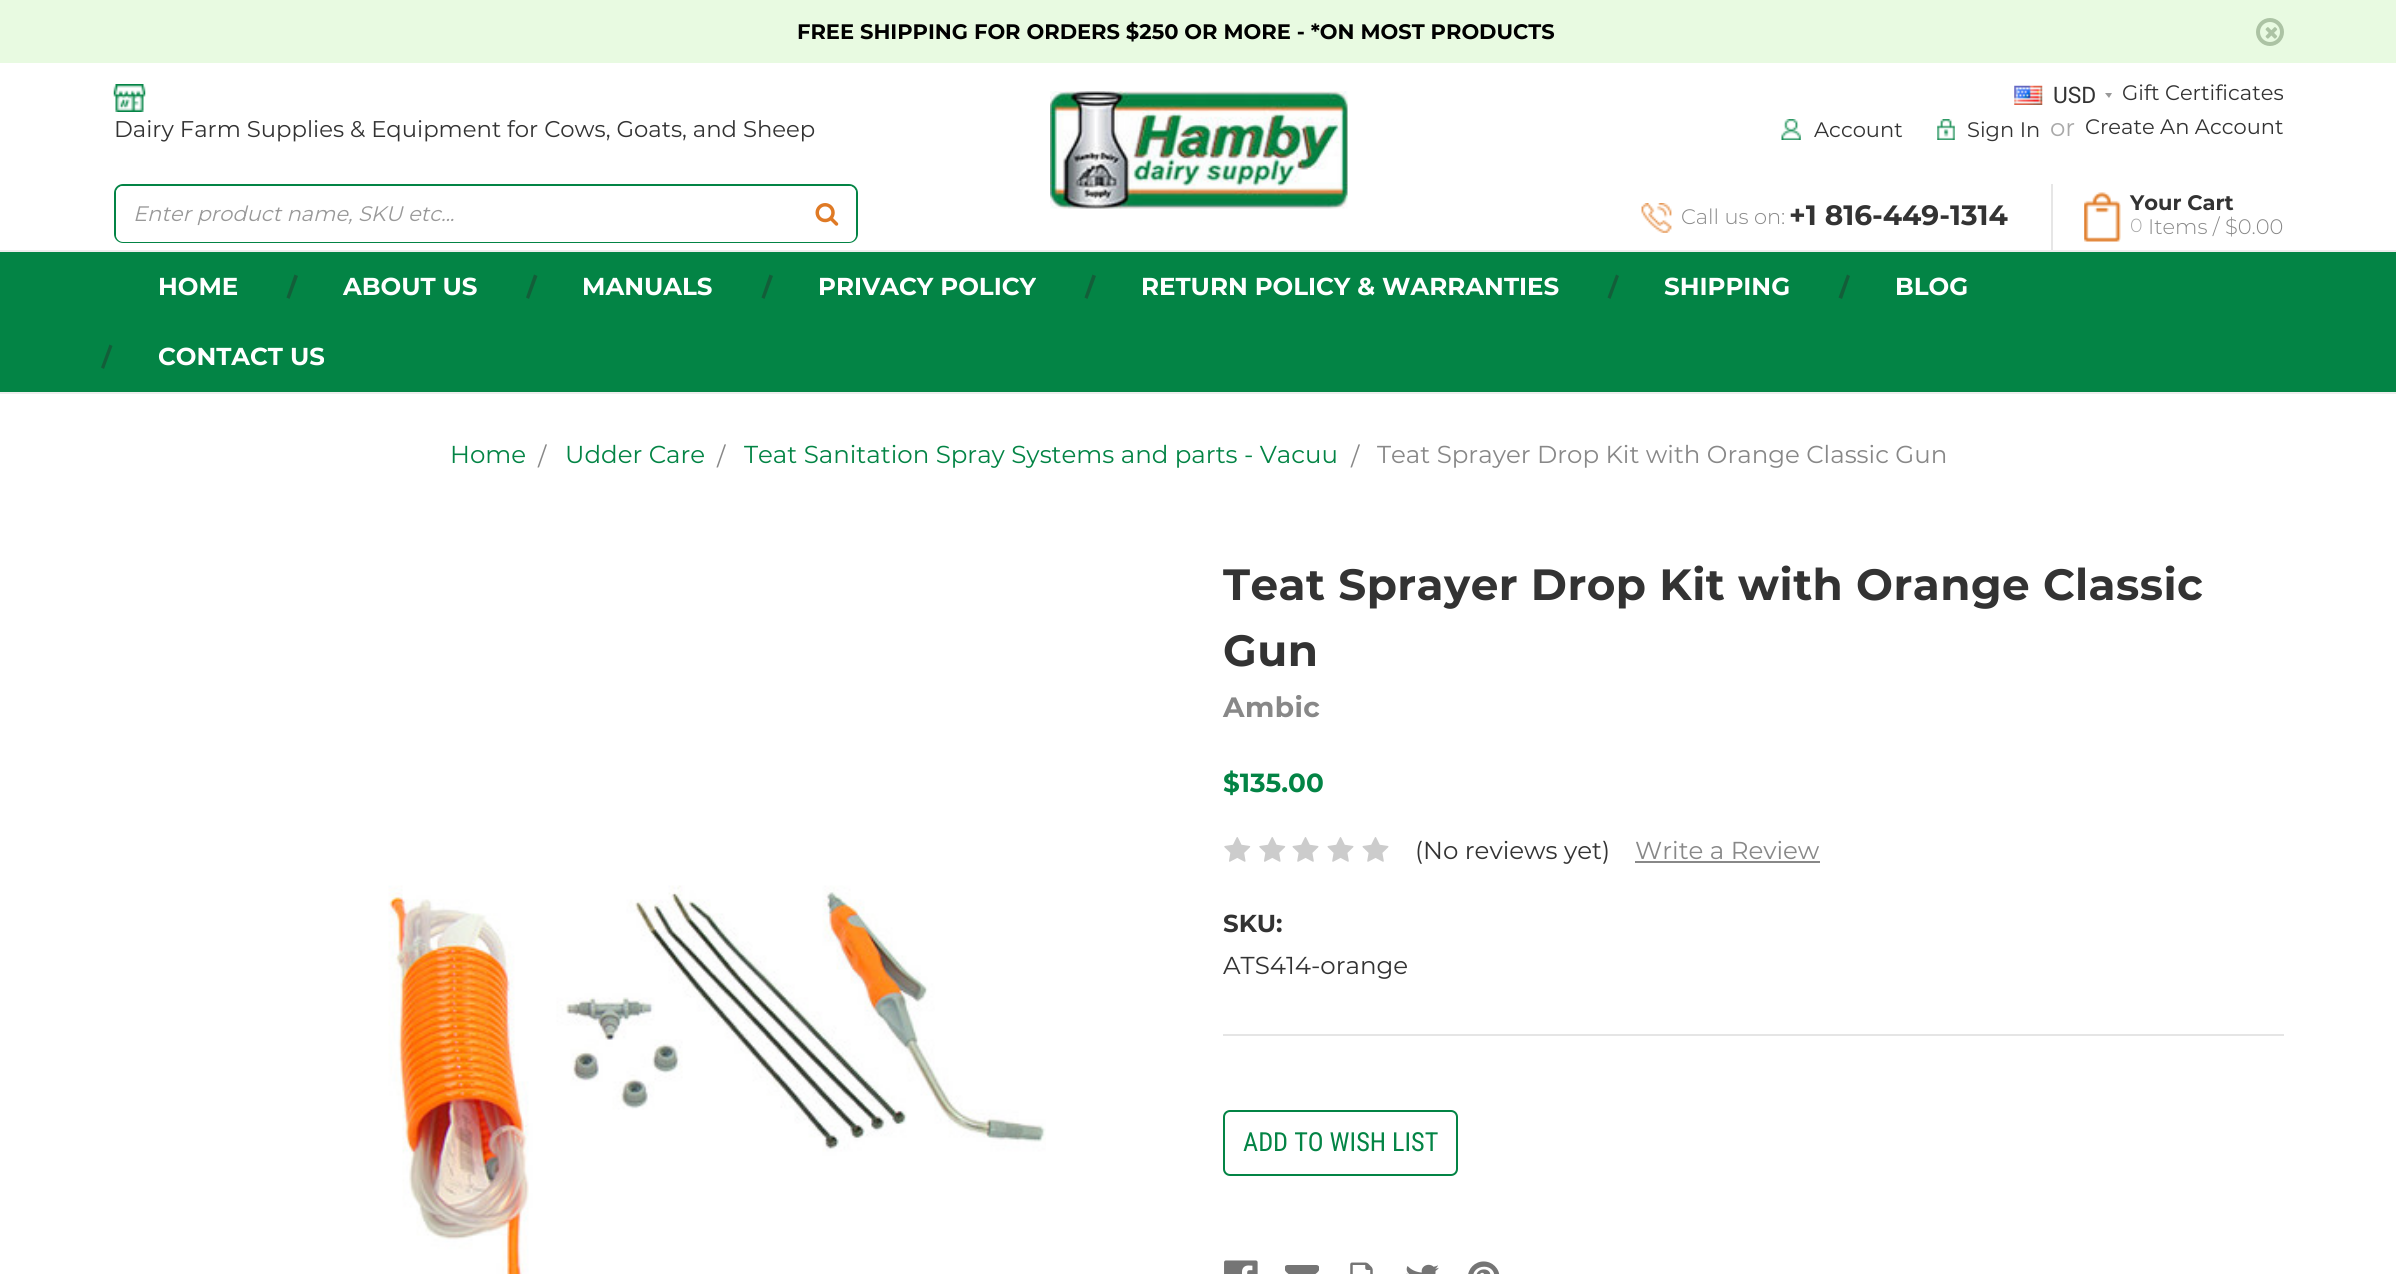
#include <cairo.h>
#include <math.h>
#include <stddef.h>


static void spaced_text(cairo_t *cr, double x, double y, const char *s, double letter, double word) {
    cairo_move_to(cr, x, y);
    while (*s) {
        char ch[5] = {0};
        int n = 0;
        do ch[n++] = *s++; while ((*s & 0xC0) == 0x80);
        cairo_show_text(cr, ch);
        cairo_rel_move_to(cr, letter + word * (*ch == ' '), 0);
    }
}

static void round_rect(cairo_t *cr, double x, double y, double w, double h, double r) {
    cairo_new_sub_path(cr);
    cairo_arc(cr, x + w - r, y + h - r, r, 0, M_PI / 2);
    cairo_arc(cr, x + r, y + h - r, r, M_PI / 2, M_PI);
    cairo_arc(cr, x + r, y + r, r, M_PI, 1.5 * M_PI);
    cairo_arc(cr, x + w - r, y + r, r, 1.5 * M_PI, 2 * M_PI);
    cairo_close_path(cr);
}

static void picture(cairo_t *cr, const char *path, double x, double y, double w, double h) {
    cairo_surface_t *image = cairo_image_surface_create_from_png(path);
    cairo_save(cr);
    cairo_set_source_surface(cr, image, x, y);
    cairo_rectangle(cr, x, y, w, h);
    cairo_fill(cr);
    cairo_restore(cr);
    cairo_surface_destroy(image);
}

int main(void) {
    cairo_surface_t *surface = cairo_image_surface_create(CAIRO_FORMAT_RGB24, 2396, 1274);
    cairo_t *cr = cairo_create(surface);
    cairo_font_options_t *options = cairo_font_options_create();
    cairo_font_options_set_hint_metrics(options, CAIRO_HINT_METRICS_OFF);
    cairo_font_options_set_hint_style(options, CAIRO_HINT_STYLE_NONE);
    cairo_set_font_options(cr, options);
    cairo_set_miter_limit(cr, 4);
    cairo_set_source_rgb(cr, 1, 1, 1);
    cairo_paint(cr);
    cairo_set_source_rgb(cr, 0.91, 0.98, 0.882);
    cairo_rectangle(cr, 0, 0, 2396, 63);
    cairo_fill(cr);
    cairo_select_font_face(cr, "Montserrat", CAIRO_FONT_SLANT_NORMAL, CAIRO_FONT_WEIGHT_BOLD);
    cairo_set_font_size(cr, 21);
    cairo_set_source_rgb(cr, 0, 0, 0);
    cairo_move_to(cr, 797, 39);
    cairo_show_text(cr, "FREE SHIPPING FOR ORDERS $250 OR MORE - *ON MOST PRODUCTS");
    cairo_new_path(cr);
    cairo_arc(cr, 2270, 32, 12, 0, 2 * M_PI);
    cairo_set_source_rgb(cr, 0.675, 0.765, 0.643);
    cairo_set_line_width(cr, 4);
    cairo_stroke(cr);
    picture(cr, "img1.png", 2265, 27, 13, 12);
    picture(cr, "img2.png", 113, 84, 33, 28);
    cairo_select_font_face(cr, "Montserrat", CAIRO_FONT_SLANT_NORMAL, CAIRO_FONT_WEIGHT_NORMAL);
    cairo_set_font_size(cr, 22.75);
    cairo_set_source_rgb(cr, 0.2, 0.2, 0.2);
    cairo_move_to(cr, 114, 137);
    cairo_show_text(cr, "Dairy Farm Supplies & Equipment for Cows, Goats, and Sheep");
    round_rect(cr, 115, 185, 742, 57, 8);
    cairo_set_source_rgb(cr, 0.012, 0.518, 0.271);
    cairo_set_line_width(cr, 2);
    cairo_stroke(cr);
    cairo_set_source_rgb(cr, 1, 1, 1);
    round_rect(cr, 116, 186, 740, 56, 7);
    cairo_fill(cr);
    cairo_select_font_face(cr, "Montserrat", CAIRO_FONT_SLANT_ITALIC, CAIRO_FONT_WEIGHT_NORMAL);
    cairo_set_font_size(cr, 21);
    cairo_set_source_rgb(cr, 0.6, 0.6, 0.6);
    cairo_move_to(cr, 133, 221);
    cairo_show_text(cr, "Enter product name, SKU etc...");
    picture(cr, "img3.png", 815, 203, 24, 23);
    picture(cr, "img4.png", 1050, 91, 298, 118);
    picture(cr, "img5.png", 2014, 85, 29, 20);
    cairo_select_font_face(cr, "Roboto", CAIRO_FONT_SLANT_NORMAL, CAIRO_FONT_WEIGHT_NORMAL);
    cairo_set_font_size(cr, 22.75);
    cairo_set_source_rgb(cr, 0.2, 0.2, 0.2);
    cairo_move_to(cr, 2053, 103);
    cairo_show_text(cr, "USD");
    cairo_set_source_rgb(cr, 0.6, 0.6, 0.6);
    cairo_new_path(cr);
    cairo_move_to(cr, 2105, 93);
    cairo_line_to(cr, 2112, 93);
    cairo_line_to(cr, 2109, 98);
    cairo_close_path(cr);
    cairo_fill(cr);
    cairo_select_font_face(cr, "Montserrat", CAIRO_FONT_SLANT_NORMAL, CAIRO_FONT_WEIGHT_NORMAL);
    cairo_set_font_size(cr, 21);
    cairo_set_source_rgb(cr, 0.2, 0.2, 0.2);
    cairo_move_to(cr, 2122, 100);
    cairo_show_text(cr, "Gift Certificates");
    picture(cr, "img6.png", 1781, 119, 20, 21);
    cairo_move_to(cr, 1814, 137);
    cairo_show_text(cr, "Account");
    picture(cr, "img7.png", 1937, 119, 18, 21);
    cairo_move_to(cr, 1967, 137);
    cairo_show_text(cr, "Sign In");
    cairo_set_font_size(cr, 24.5);
    cairo_set_source_rgb(cr, 0.663, 0.663, 0.663);
    cairo_move_to(cr, 2050, 136);
    cairo_show_text(cr, "or");
    cairo_set_font_size(cr, 21);
    cairo_set_source_rgb(cr, 0.2, 0.2, 0.2);
    cairo_move_to(cr, 2085, 134);
    cairo_show_text(cr, "Create An Account");
    picture(cr, "img8.png", 1641, 203, 31, 30);
    cairo_select_font_face(cr, "Montserrat Light", CAIRO_FONT_SLANT_NORMAL, CAIRO_FONT_WEIGHT_NORMAL);
    cairo_set_source_rgb(cr, 0.533, 0.533, 0.533);
    cairo_move_to(cr, 1681, 224);
    cairo_show_text(cr, "Call us on:");
    cairo_select_font_face(cr, "Montserrat", CAIRO_FONT_SLANT_NORMAL, CAIRO_FONT_WEIGHT_BOLD);
    cairo_set_font_size(cr, 28);
    cairo_set_source_rgb(cr, 0.2, 0.2, 0.2);
    cairo_move_to(cr, 1789, 225);
    cairo_show_text(cr, "+1 816-449-1314");
    cairo_set_source_rgb(cr, 0.902, 0.902, 0.902);
    cairo_rectangle(cr, 2051, 184, 2, 66);
    cairo_fill(cr);
    picture(cr, "img9.png", 2084, 192, 37, 50);
    cairo_set_font_size(cr, 21);
    cairo_set_source_rgb(cr, 0.2, 0.2, 0.2);
    cairo_move_to(cr, 2130, 210);
    cairo_show_text(cr, "Your Cart");
    cairo_select_font_face(cr, "Montserrat Light", CAIRO_FONT_SLANT_NORMAL, CAIRO_FONT_WEIGHT_NORMAL);
    cairo_set_font_size(cr, 19);
    cairo_set_source_rgb(cr, 0.663, 0.663, 0.663);
    cairo_move_to(cr, 2130, 232);
    cairo_show_text(cr, "0");
    cairo_set_font_size(cr, 21);
    cairo_set_source_rgb(cr, 0.533, 0.533, 0.533);
    cairo_move_to(cr, 2148, 234);
    cairo_show_text(cr, "Items / $0.00");
    cairo_set_source_rgb(cr, 0.012, 0.518, 0.271);
    cairo_rectangle(cr, 0, 252, 2396, 140);
    cairo_fill(cr);
    cairo_set_source_rgb(cr, 0.929, 0.929, 0.929);
    cairo_rectangle(cr, 0, 250, 2396, 2);
    cairo_fill(cr);
    cairo_rectangle(cr, 0, 392, 2396, 2);
    cairo_fill(cr);
    cairo_select_font_face(cr, "Montserrat", CAIRO_FONT_SLANT_NORMAL, CAIRO_FONT_WEIGHT_BOLD);
    cairo_set_font_size(cr, 24.5);
    cairo_set_source_rgb(cr, 1, 1, 1);
    cairo_move_to(cr, 158, 295);
    cairo_show_text(cr, "HOME");
    cairo_set_source_rgb(cr, 0.075, 0.369, 0.224);
    cairo_new_path(cr);
    cairo_move_to(cr, 294.5, 274.5);
    cairo_line_to(cr, 298, 276);
    cairo_line_to(cr, 289.5, 299);
    cairo_line_to(cr, 286.5, 297.5);
    cairo_close_path(cr);
    cairo_fill(cr);
    cairo_set_source_rgb(cr, 1, 1, 1);
    cairo_move_to(cr, 343, 295);
    cairo_show_text(cr, "ABOUT US");
    cairo_set_source_rgb(cr, 0.075, 0.369, 0.224);
    cairo_new_path(cr);
    cairo_move_to(cr, 534, 274.5);
    cairo_line_to(cr, 537.5, 276);
    cairo_line_to(cr, 529, 299);
    cairo_line_to(cr, 526, 297.5);
    cairo_close_path(cr);
    cairo_fill(cr);
    cairo_set_source_rgb(cr, 1, 1, 1);
    cairo_move_to(cr, 582, 295);
    cairo_show_text(cr, "MANUALS");
    cairo_set_source_rgb(cr, 0.075, 0.369, 0.224);
    cairo_new_path(cr);
    cairo_move_to(cr, 769.5, 274.5);
    cairo_line_to(cr, 773, 276);
    cairo_line_to(cr, 764.5, 299);
    cairo_line_to(cr, 761.5, 297.5);
    cairo_close_path(cr);
    cairo_fill(cr);
    cairo_set_source_rgb(cr, 1, 1, 1);
    cairo_move_to(cr, 818, 295);
    cairo_show_text(cr, "PRIVACY POLICY");
    cairo_set_source_rgb(cr, 0.075, 0.369, 0.224);
    cairo_new_path(cr);
    cairo_move_to(cr, 1092.5, 274.5);
    cairo_line_to(cr, 1096, 276);
    cairo_line_to(cr, 1087.5, 299);
    cairo_line_to(cr, 1084.5, 297.5);
    cairo_close_path(cr);
    cairo_fill(cr);
    cairo_set_source_rgb(cr, 1, 1, 1);
    cairo_move_to(cr, 1141, 295);
    cairo_show_text(cr, "RETURN POLICY & WARRANTIES");
    cairo_set_source_rgb(cr, 0.075, 0.369, 0.224);
    cairo_new_path(cr);
    cairo_move_to(cr, 1616, 274.5);
    cairo_line_to(cr, 1619, 276);
    cairo_line_to(cr, 1610.5, 299);
    cairo_line_to(cr, 1607.5, 297.5);
    cairo_close_path(cr);
    cairo_fill(cr);
    cairo_set_source_rgb(cr, 1, 1, 1);
    cairo_move_to(cr, 1664, 295);
    cairo_show_text(cr, "SHIPPING");
    cairo_set_source_rgb(cr, 0.075, 0.369, 0.224);
    cairo_new_path(cr);
    cairo_move_to(cr, 1847, 274.5);
    cairo_line_to(cr, 1850, 276);
    cairo_line_to(cr, 1842, 299);
    cairo_line_to(cr, 1838.5, 297.5);
    cairo_close_path(cr);
    cairo_fill(cr);
    cairo_set_source_rgb(cr, 1, 1, 1);
    cairo_move_to(cr, 1895, 295);
    cairo_show_text(cr, "BLOG");
    cairo_set_source_rgb(cr, 0.075, 0.369, 0.224);
    cairo_new_path(cr);
    cairo_move_to(cr, 109.5, 344.5);
    cairo_line_to(cr, 112.5, 346);
    cairo_line_to(cr, 104, 369);
    cairo_line_to(cr, 101, 367.5);
    cairo_close_path(cr);
    cairo_fill(cr);
    cairo_set_source_rgb(cr, 1, 1, 1);
    cairo_move_to(cr, 158, 365);
    cairo_show_text(cr, "CONTACT US");
    cairo_select_font_face(cr, "Montserrat", CAIRO_FONT_SLANT_NORMAL, CAIRO_FONT_WEIGHT_NORMAL);
    cairo_set_source_rgb(cr, 0.012, 0.518, 0.271);
    cairo_move_to(cr, 450, 463);
    cairo_show_text(cr, "Home");
    cairo_set_source_rgb(cr, 0.533, 0.533, 0.533);
    cairo_move_to(cr, 538, 465);
    cairo_show_text(cr, "/");
    cairo_set_source_rgb(cr, 0.012, 0.518, 0.271);
    cairo_move_to(cr, 565, 463);
    cairo_show_text(cr, "Udder Care");
    cairo_set_source_rgb(cr, 0.533, 0.533, 0.533);
    cairo_move_to(cr, 717, 465);
    cairo_show_text(cr, "/");
    cairo_set_source_rgb(cr, 0.012, 0.518, 0.271);
    cairo_move_to(cr, 744, 463);
    cairo_show_text(cr, "Teat Sanitation Spray Systems and parts - Vacuu");
    cairo_set_source_rgb(cr, 0.533, 0.533, 0.533);
    cairo_move_to(cr, 1351, 465);
    cairo_show_text(cr, "/");
    cairo_move_to(cr, 1377, 463);
    cairo_show_text(cr, "Teat Sprayer Drop Kit with Orange Classic Gun");
    cairo_set_source_rgb(cr, 0.898, 0.898, 0.898);
    cairo_rectangle(cr, 1223, 1034, 1061, 2);
    cairo_fill(cr);
    cairo_select_font_face(cr, "Montserrat", CAIRO_FONT_SLANT_NORMAL, CAIRO_FONT_WEIGHT_BOLD);
    cairo_set_font_size(cr, 43.75);
    cairo_set_source_rgb(cr, 0.2, 0.2, 0.2);
    spaced_text(cr, 1223, 600, "Teat Sprayer Drop Kit with Orange Classic", 0.45, 0);
    spaced_text(cr, 1223, 666, "Gun", 0.45, 0);
    cairo_set_font_size(cr, 28);
    cairo_set_source_rgb(cr, 0.533, 0.533, 0.533);
    spaced_text(cr, 1223, 717, "Ambic", 0.45, 0);
    cairo_set_font_size(cr, 26.25);
    cairo_set_source_rgb(cr, 0.012, 0.518, 0.271);
    cairo_move_to(cr, 1223, 792);
    cairo_show_text(cr, "$135.00");
    picture(cr, "img10.png", 1224, 837, 27, 25);
    picture(cr, "img10.png", 1259, 837, 27, 25);
    picture(cr, "img11.png", 1292, 837, 27, 25);
    picture(cr, "img11.png", 1327, 837, 27, 25);
    picture(cr, "img11.png", 1362, 837, 27, 25);
    cairo_select_font_face(cr, "Montserrat", CAIRO_FONT_SLANT_NORMAL, CAIRO_FONT_WEIGHT_NORMAL);
    cairo_set_font_size(cr, 24.5);
    cairo_set_source_rgb(cr, 0.2, 0.2, 0.2);
    cairo_move_to(cr, 1415, 859);
    cairo_show_text(cr, "(No reviews yet)");
    cairo_set_source_rgb(cr, 0.533, 0.533, 0.533);
    cairo_move_to(cr, 1635, 859);
    cairo_show_text(cr, "Write a Review");
    cairo_rectangle(cr, 1635, 861, 185, 2);
    cairo_fill(cr);
    cairo_select_font_face(cr, "Montserrat", CAIRO_FONT_SLANT_NORMAL, CAIRO_FONT_WEIGHT_BOLD);
    cairo_set_source_rgb(cr, 0.2, 0.2, 0.2);
    cairo_move_to(cr, 1223, 932);
    cairo_show_text(cr, "SKU:");
    cairo_select_font_face(cr, "Montserrat", CAIRO_FONT_SLANT_NORMAL, CAIRO_FONT_WEIGHT_NORMAL);
    cairo_move_to(cr, 1223, 974);
    cairo_show_text(cr, "ATS414-orange");
    picture(cr, "img12.png", 388, 885, 658, 389);
    round_rect(cr, 1224, 1111, 233, 64, 6);
    cairo_set_source_rgb(cr, 0.012, 0.518, 0.271);
    cairo_stroke(cr);
    cairo_select_font_face(cr, "Roboto Condensed", CAIRO_FONT_SLANT_NORMAL, CAIRO_FONT_WEIGHT_NORMAL);
    cairo_set_font_size(cr, 26.25);
    cairo_move_to(cr, 1243, 1151);
    cairo_show_text(cr, "ADD TO WISH LIST");
    picture(cr, "img13.png", 1224, 1260, 34, 14);
    picture(cr, "img14.png", 1285, 1265, 34, 9);
    picture(cr, "img15.png", 1350, 1262, 23, 12);
    picture(cr, "img16.png", 1406, 1264, 33, 10);
    picture(cr, "img17.png", 1468, 1261, 32, 13);
    cairo_surface_write_to_png(surface, "page.png");
    cairo_font_options_destroy(options);
    cairo_destroy(cr);
    cairo_surface_destroy(surface);
    return 0;
}
